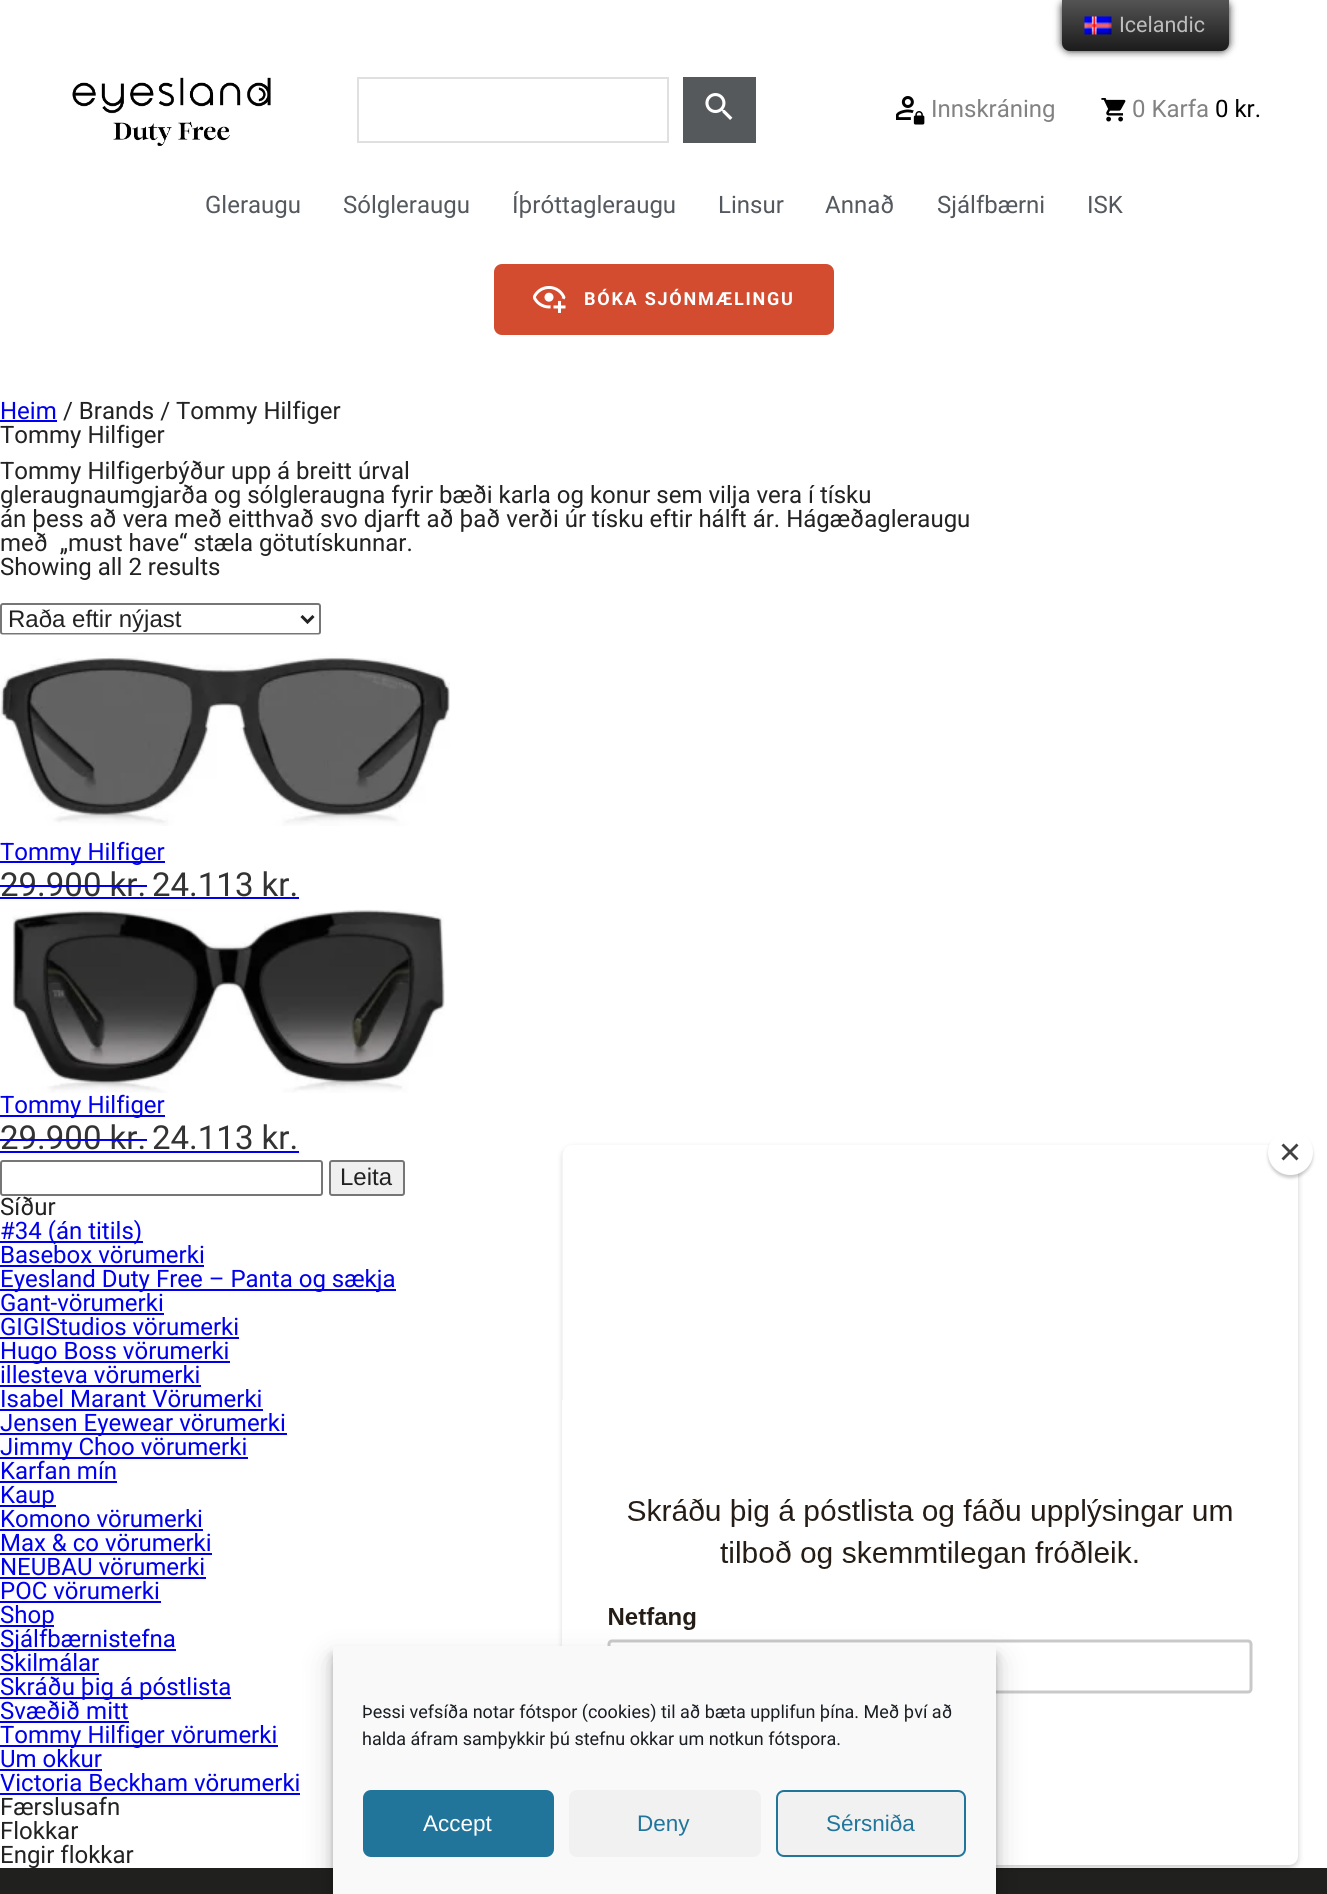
#include <cairo.h>
#include <math.h>
#include <stddef.h>


static void spaced_text(cairo_t *cr, double x, double y, const char *s, double letter, double word) {
    cairo_move_to(cr, x, y);
    while (*s) {
        char ch[5] = {0};
        int n = 0;
        do ch[n++] = *s++; while ((*s & 0xC0) == 0x80);
        cairo_show_text(cr, ch);
        cairo_rel_move_to(cr, letter + word * (*ch == ' '), 0);
    }
}

static void round_rect(cairo_t *cr, double x, double y, double w, double h, double r) {
    cairo_new_sub_path(cr);
    cairo_arc(cr, x + w - r, y + h - r, r, 0, M_PI / 2);
    cairo_arc(cr, x + r, y + h - r, r, M_PI / 2, M_PI);
    cairo_arc(cr, x + r, y + r, r, M_PI, 1.5 * M_PI);
    cairo_arc(cr, x + w - r, y + r, r, 1.5 * M_PI, 2 * M_PI);
    cairo_close_path(cr);
}

static void shadow(cairo_t *cr, double x, double y, double w, double h, double r, double blur, double alpha) {
    cairo_push_group_with_content(cr, CAIRO_CONTENT_ALPHA);
    cairo_set_operator(cr, CAIRO_OPERATOR_SOURCE);
    for (int i = 15; i >= -15 && fmin(w, h) + blur * i / 3 > 0; i -= 2) {
        double e = blur * i / 6;
        cairo_set_source_rgba(cr, 0, 0, 0, alpha * erfc((i - 1) / 8.5) / 2);
        round_rect(cr, x - e, y - e, w + 2 * e, h + 2 * e, fmax(0, fmin(r + e + blur * .6, fmin(w, h) / 2 + e)));
        cairo_fill(cr);
    }
    cairo_pattern_t *soft = cairo_pop_group(cr);
    cairo_mask(cr, soft);
    cairo_pattern_destroy(soft);
}

static void picture(cairo_t *cr, const char *path, double x, double y, double w, double h) {
    cairo_surface_t *image = cairo_image_surface_create_from_png(path);
    cairo_save(cr);
    cairo_set_source_surface(cr, image, x, y);
    cairo_rectangle(cr, x, y, w, h);
    cairo_fill(cr);
    cairo_restore(cr);
    cairo_surface_destroy(image);
}

int main(void) {
    cairo_surface_t *surface = cairo_image_surface_create(CAIRO_FORMAT_RGB24, 1327, 1894);
    cairo_t *cr = cairo_create(surface);
    cairo_font_options_t *options = cairo_font_options_create();
    cairo_font_options_set_hint_metrics(options, CAIRO_HINT_METRICS_OFF);
    cairo_font_options_set_hint_style(options, CAIRO_HINT_STYLE_NONE);
    cairo_set_font_options(cr, options);
    cairo_set_miter_limit(cr, 4);
    cairo_pattern_t *gradient;
    cairo_set_source_rgb(cr, 1, 1, 1);
    cairo_paint(cr);
    cairo_set_source_rgb(cr, 0.125, 0.125, 0.118);
    cairo_rectangle(cr, 0, 1868, 1327, 26);
    cairo_fill(cr);
    cairo_set_source_rgb(cr, 0.129, 0.129, 0.129);
    shadow(cr, 1062, 0, 167, 51, 8, 4, 1);
    gradient = cairo_pattern_create_linear(1145, 51, 1145, 0);
    cairo_pattern_add_color_stop_rgba(gradient, 0, 0.106, 0.106, 0.106, 1);
    cairo_pattern_add_color_stop_rgba(gradient, 1, 0.329, 0.329, 0.329, 1);
    cairo_set_source(cr, gradient);
    cairo_pattern_destroy(gradient);
    cairo_new_path(cr);
    cairo_move_to(cr, 1062, 0);
    cairo_line_to(cr, 1229, 0);
    cairo_line_to(cr, 1229, 43);
    cairo_curve_to(cr, 1229, 47.5, 1225.5, 51, 1221, 51);
    cairo_line_to(cr, 1070, 51);
    cairo_curve_to(cr, 1065.5, 51, 1062, 47.5, 1062, 43);
    cairo_close_path(cr);
    cairo_fill(cr);
    picture(cr, "img1.png", 1084, 16, 28, 19);
    cairo_select_font_face(cr, "Roboto", CAIRO_FONT_SLANT_NORMAL, CAIRO_FONT_WEIGHT_NORMAL);
    cairo_set_font_size(cr, 21.5);
    cairo_set_source_rgb(cr, 0.741, 0.741, 0.741);
    cairo_move_to(cr, 1119, 32);
    cairo_show_text(cr, "Icelandic");
    picture(cr, "img2.png", 72, 77, 199, 69);
    cairo_rectangle(cr, 358, 78, 310, 64);
    cairo_set_source_rgb(cr, 0.878, 0.878, 0.878);
    cairo_stroke(cr);
    cairo_set_source_rgb(cr, 0.333, 0.349, 0.361);
    cairo_rectangle(cr, 683, 77, 73, 66);
    cairo_fill(cr);
    picture(cr, "img3.png", 705, 93, 28, 27);
    picture(cr, "img4.png", 896, 96, 29, 29);
    cairo_set_font_size(cr, 24);
    cairo_set_source_rgb(cr, 0.51, 0.51, 0.51);
    cairo_move_to(cr, 931, 117);
    cairo_show_text(cr, "Innskráning");
    picture(cr, "img5.png", 1101, 98, 25, 24);
    cairo_move_to(cr, 1132, 117);
    cairo_show_text(cr, "0 Karfa");
    cairo_set_source_rgb(cr, 0, 0, 0);
    cairo_move_to(cr, 1215, 117);
    cairo_show_text(cr, "0 kr.");
    cairo_set_source_rgb(cr, 0.329, 0.349, 0.373);
    cairo_move_to(cr, 205, 213);
    cairo_show_text(cr, "Gleraugu");
    cairo_move_to(cr, 343, 213);
    cairo_show_text(cr, "Sólgleraugu");
    cairo_move_to(cr, 512, 213);
    cairo_show_text(cr, "Íþróttagleraugu");
    cairo_move_to(cr, 718, 213);
    cairo_show_text(cr, "Linsur");
    cairo_move_to(cr, 825, 213);
    cairo_show_text(cr, "Annað");
    cairo_move_to(cr, 937, 213);
    cairo_show_text(cr, "Sjálfbærni");
    cairo_move_to(cr, 1087, 213);
    cairo_show_text(cr, "ISK");
    cairo_set_source_rgb(cr, 0.827, 0.298, 0.188);
    round_rect(cr, 495.5, 265.5, 337, 68, 6.5);
    cairo_fill_preserve(cr);
    cairo_set_line_width(cr, 3);
    cairo_stroke(cr);
    picture(cr, "img6.png", 533, 286, 33, 27);
    cairo_select_font_face(cr, "Roboto", CAIRO_FONT_SLANT_NORMAL, CAIRO_FONT_WEIGHT_BOLD);
    cairo_set_font_size(cr, 18);
    cairo_set_source_rgb(cr, 1, 1, 1);
    spaced_text(cr, 584, 305, "BÓKA SJÓNMÆLINGU", 1.75, 0);
    cairo_select_font_face(cr, "Roboto", CAIRO_FONT_SLANT_NORMAL, CAIRO_FONT_WEIGHT_NORMAL);
    cairo_set_font_size(cr, 24);
    cairo_set_source_rgb(cr, 0, 0, 0.933);
    cairo_move_to(cr, 0, 419);
    cairo_show_text(cr, "Heim");
    cairo_rectangle(cr, 0, 420, 57, 2);
    cairo_fill(cr);
    cairo_set_source_rgb(cr, 0.133, 0.133, 0.133);
    cairo_move_to(cr, 63, 419);
    cairo_show_text(cr, "/ Brands / Tommy Hilfiger");
    cairo_move_to(cr, 0, 443);
    cairo_show_text(cr, "Tommy Hilfiger");
    cairo_move_to(cr, 0, 479);
    cairo_show_text(cr, "Tommy Hilfigerbýður upp á breitt úrval");
    cairo_move_to(cr, 0, 503);
    cairo_show_text(cr, "gleraugnaumgjarða og sólgleraugna fyrir bæði karla og konur sem vilja vera í tísku");
    cairo_move_to(cr, 0, 527);
    cairo_show_text(cr, "án þess að vera með eitthvað svo djarft að það verði úr tísku eftir hálft ár. Hágæðagleraugu");
    cairo_move_to(cr, 0, 551);
    cairo_show_text(cr, "með  „must have“ stæla götutískunnar.");
    cairo_move_to(cr, 0, 575);
    cairo_show_text(cr, "Showing all 2 results");
    round_rect(cr, 1, 604, 319, 30, 2);
    cairo_set_source_rgb(cr, 0.463, 0.463, 0.463);
    cairo_set_line_width(cr, 2);
    cairo_stroke(cr);
    cairo_new_path(cr);
    cairo_move_to(cr, 301.5, 616);
    cairo_line_to(cr, 307.5, 622);
    cairo_line_to(cr, 313.5, 616);
    cairo_set_source_rgb(cr, 0.133, 0.133, 0.133);
    cairo_set_line_width(cr, 3);
    cairo_stroke(cr);
    cairo_select_font_face(cr, "Liberation Sans", CAIRO_FONT_SLANT_NORMAL, CAIRO_FONT_WEIGHT_NORMAL);
    cairo_move_to(cr, 8, 627);
    cairo_show_text(cr, "Raða eftir nýjast");
    picture(cr, "img7.png", 0, 634, 450, 192);
    cairo_set_source_rgb(cr, 0, 0, 0.933);
    cairo_rectangle(cr, 0, 861, 165, 2);
    cairo_fill(cr);
    cairo_select_font_face(cr, "Roboto", CAIRO_FONT_SLANT_NORMAL, CAIRO_FONT_WEIGHT_NORMAL);
    cairo_move_to(cr, 0, 860);
    cairo_show_text(cr, "Tommy Hilfiger");
    cairo_set_font_size(cr, 33);
    cairo_set_source_rgb(cr, 0.2, 0.2, 0.2);
    cairo_move_to(cr, 0, 896);
    cairo_show_text(cr, "29.900 kr.");
    cairo_set_source_rgb(cr, 0, 0, 0.933);
    cairo_rectangle(cr, 0, 897, 299, 2);
    cairo_fill(cr);
    cairo_rectangle(cr, 0, 885, 147, 2);
    cairo_fill(cr);
    cairo_set_source_rgb(cr, 0.2, 0.2, 0.2);
    cairo_move_to(cr, 152, 896);
    cairo_show_text(cr, "24.113 kr.");
    picture(cr, "img8.png", 12, 909, 433, 184);
    cairo_set_source_rgb(cr, 0, 0, 0.933);
    cairo_rectangle(cr, 0, 1115, 165, 2);
    cairo_fill(cr);
    cairo_set_font_size(cr, 24);
    cairo_move_to(cr, 0, 1113);
    cairo_show_text(cr, "Tommy Hilfiger");
    cairo_set_font_size(cr, 33);
    cairo_set_source_rgb(cr, 0.2, 0.2, 0.2);
    cairo_move_to(cr, 0, 1149);
    cairo_show_text(cr, "29.900 kr.");
    cairo_set_source_rgb(cr, 0, 0, 0.933);
    cairo_rectangle(cr, 0, 1151, 299, 2);
    cairo_fill(cr);
    cairo_rectangle(cr, 0, 1139, 147, 2);
    cairo_fill(cr);
    cairo_set_source_rgb(cr, 0.2, 0.2, 0.2);
    cairo_move_to(cr, 152, 1149);
    cairo_show_text(cr, "24.113 kr.");
    round_rect(cr, 1, 1161, 321, 34, 2);
    cairo_set_source_rgb(cr, 0.463, 0.463, 0.463);
    cairo_set_line_width(cr, 2);
    cairo_stroke(cr);
    cairo_set_source_rgb(cr, 0.937, 0.937, 0.937);
    round_rect(cr, 330, 1161, 74, 34, 2);
    cairo_fill_preserve(cr);
    cairo_set_source_rgb(cr, 0.463, 0.463, 0.463);
    cairo_stroke(cr);
    cairo_select_font_face(cr, "Liberation Sans", CAIRO_FONT_SLANT_NORMAL, CAIRO_FONT_WEIGHT_NORMAL);
    cairo_set_font_size(cr, 24);
    cairo_set_source_rgb(cr, 0.133, 0.133, 0.133);
    cairo_move_to(cr, 340, 1185);
    cairo_show_text(cr, "Leita");
    cairo_select_font_face(cr, "Roboto", CAIRO_FONT_SLANT_NORMAL, CAIRO_FONT_WEIGHT_NORMAL);
    cairo_move_to(cr, 0, 1215);
    cairo_show_text(cr, "Síður");
    cairo_set_source_rgb(cr, 0, 0, 0.933);
    cairo_rectangle(cr, 0, 1241, 143, 2);
    cairo_fill(cr);
    cairo_move_to(cr, 0, 1239);
    cairo_show_text(cr, "#34 (án titils)");
    cairo_move_to(cr, 0, 1263);
    cairo_show_text(cr, "Basebox vörumerki");
    cairo_rectangle(cr, 0, 1265, 204, 2);
    cairo_fill(cr);
    cairo_rectangle(cr, 0, 1289, 396, 2);
    cairo_fill(cr);
    cairo_move_to(cr, 0, 1287);
    cairo_show_text(cr, "Eyesland Duty Free – Panta og sækja");
    cairo_move_to(cr, 0, 1311);
    cairo_show_text(cr, "Gant-vörumerki");
    cairo_rectangle(cr, 0, 1313, 164, 2);
    cairo_fill(cr);
    cairo_move_to(cr, 0, 1335);
    cairo_show_text(cr, "GIGIStudios vörumerki");
    cairo_rectangle(cr, 0, 1337, 239, 2);
    cairo_fill(cr);
    cairo_rectangle(cr, 0, 1361, 230, 2);
    cairo_fill(cr);
    cairo_move_to(cr, 0, 1359);
    cairo_show_text(cr, "Hugo Boss vörumerki");
    cairo_move_to(cr, 0, 1383);
    cairo_show_text(cr, "illesteva vörumerki");
    cairo_rectangle(cr, 0, 1385, 201, 2);
    cairo_fill(cr);
    cairo_move_to(cr, 0, 1407);
    cairo_show_text(cr, "Isabel Marant Vörumerki");
    cairo_rectangle(cr, 0, 1409, 263, 2);
    cairo_fill(cr);
    cairo_rectangle(cr, 0, 1433, 287, 2);
    cairo_fill(cr);
    cairo_move_to(cr, 0, 1431);
    cairo_show_text(cr, "Jensen Eyewear vörumerki");
    cairo_rectangle(cr, 0, 1457, 248, 2);
    cairo_fill(cr);
    cairo_move_to(cr, 0, 1455);
    cairo_show_text(cr, "Jimmy Choo vörumerki");
    cairo_move_to(cr, 0, 1479);
    cairo_show_text(cr, "Karfan mín");
    cairo_rectangle(cr, 0, 1481, 117, 2);
    cairo_fill(cr);
    cairo_rectangle(cr, 0, 1505, 56, 2);
    cairo_fill(cr);
    cairo_move_to(cr, 0, 1503);
    cairo_show_text(cr, "Kaup");
    cairo_move_to(cr, 0, 1527);
    cairo_show_text(cr, "Komono vörumerki");
    cairo_rectangle(cr, 0, 1529, 203, 2);
    cairo_fill(cr);
    cairo_move_to(cr, 0, 1551);
    cairo_show_text(cr, "Max & co vörumerki");
    cairo_rectangle(cr, 0, 1553, 212, 2);
    cairo_fill(cr);
    cairo_move_to(cr, 0, 1575);
    cairo_show_text(cr, "NEUBAU vörumerki");
    cairo_rectangle(cr, 0, 1577, 206, 2);
    cairo_fill(cr);
    cairo_move_to(cr, 0, 1599);
    cairo_show_text(cr, "POC vörumerki");
    cairo_rectangle(cr, 0, 1601, 161, 2);
    cairo_fill(cr);
    cairo_rectangle(cr, 0, 1625, 54, 2);
    cairo_fill(cr);
    cairo_move_to(cr, 0, 1623);
    cairo_show_text(cr, "Shop");
    cairo_rectangle(cr, 0, 1649, 176, 2);
    cairo_fill(cr);
    cairo_move_to(cr, 0, 1647);
    cairo_show_text(cr, "Sjálfbærnistefna");
    cairo_move_to(cr, 0, 1671);
    cairo_show_text(cr, "Skilmálar");
    cairo_rectangle(cr, 0, 1673, 99, 2);
    cairo_fill(cr);
    cairo_rectangle(cr, 0, 1697, 231, 2);
    cairo_fill(cr);
    cairo_move_to(cr, 0, 1695);
    cairo_show_text(cr, "Skráðu þig á póstlista");
    cairo_move_to(cr, 0, 1719);
    cairo_show_text(cr, "Svæðið mitt");
    cairo_rectangle(cr, 0, 1721, 129, 2);
    cairo_fill(cr);
    cairo_rectangle(cr, 0, 1745, 278, 2);
    cairo_fill(cr);
    cairo_move_to(cr, 0, 1743);
    cairo_show_text(cr, "Tommy Hilfiger vörumerki");
    cairo_move_to(cr, 0, 1767);
    cairo_show_text(cr, "Um okkur");
    cairo_rectangle(cr, 0, 1769, 102, 2);
    cairo_fill(cr);
    cairo_move_to(cr, 0, 1791);
    cairo_show_text(cr, "Victoria Beckham vörumerki");
    cairo_rectangle(cr, 0, 1793, 300, 2);
    cairo_fill(cr);
    cairo_set_source_rgb(cr, 0.133, 0.133, 0.133);
    cairo_move_to(cr, 0, 1815);
    cairo_show_text(cr, "Færslusafn");
    cairo_move_to(cr, 0, 1839);
    cairo_show_text(cr, "Flokkar");
    cairo_move_to(cr, 0, 1863);
    cairo_show_text(cr, "Engir flokkar");
    cairo_set_source_rgb(cr, 0, 0, 0);
    shadow(cr, 563, 1148, 735, 720, 9, 3, 0.2);
    cairo_set_source_rgb(cr, 1, 1, 1);
    round_rect(cr, 563, 1145, 735, 720, 9);
    cairo_fill(cr);
    cairo_set_source_rgb(cr, 0, 0, 0);
    shadow(cr, 1268, 1133, 45, 45, 22.5, 1.5, 0.2);
    cairo_set_source_rgb(cr, 1, 1, 1);
    cairo_arc(cr, 1290.5, 1152.5, 22.5, 0, 2 * M_PI);
    cairo_fill(cr);
    cairo_set_source_rgb(cr, 0.255, 0.255, 0.255);
    cairo_new_path(cr);
    cairo_move_to(cr, 1296.5, 1143.5);
    cairo_line_to(cr, 1298.5, 1145.5);
    cairo_line_to(cr, 1283.5, 1160.5);
    cairo_line_to(cr, 1281.5, 1158.5);
    cairo_close_path(cr);
    cairo_fill(cr);
    cairo_new_path(cr);
    cairo_move_to(cr, 1281.5, 1145.5);
    cairo_line_to(cr, 1283.5, 1143.5);
    cairo_line_to(cr, 1298.5, 1158.5);
    cairo_line_to(cr, 1296.5, 1160.5);
    cairo_close_path(cr);
    cairo_fill(cr);
    picture(cr, "img9.png", 562, 1154, 691, 711);
    cairo_set_source_rgb(cr, 0, 0, 0);
    shadow(cr, 333, 1655, 663, 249, 0, 4.5, 0.23);
    shadow(cr, 333, 1661, 663, 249, 0, 15, 0.19);
    cairo_set_source_rgb(cr, 0.976, 0.976, 0.976);
    cairo_rectangle(cr, 333, 1646, 663, 248);
    cairo_fill(cr);
    cairo_set_font_size(cr, 18);
    cairo_set_source_rgb(cr, 0.098, 0.118, 0.137);
    cairo_move_to(cr, 362, 1718);
    cairo_show_text(cr, "Þessi vefsíða notar fótspor (cookies) til að bæta upplifun þína. Með því að");
    cairo_move_to(cr, 362, 1745);
    cairo_show_text(cr, "halda áfram samþykkir þú stefnu okkar um notkun fótspora.");
    cairo_set_source_rgb(cr, 0.129, 0.459, 0.608);
    round_rect(cr, 364, 1791, 189, 65, 7);
    cairo_fill_preserve(cr);
    cairo_stroke(cr);
    cairo_select_font_face(cr, "Liberation Sans", CAIRO_FONT_SLANT_NORMAL, CAIRO_FONT_WEIGHT_NORMAL);
    cairo_set_font_size(cr, 22.5);
    cairo_set_source_rgb(cr, 1, 1, 1);
    cairo_move_to(cr, 423, 1831);
    cairo_show_text(cr, "Accept");
    cairo_set_source_rgb(cr, 0.945, 0.945, 0.945);
    round_rect(cr, 569, 1790, 192, 67, 8);
    cairo_fill(cr);
    cairo_set_source_rgb(cr, 0.129, 0.459, 0.608);
    cairo_move_to(cr, 637, 1831);
    cairo_show_text(cr, "Deny");
    cairo_set_source_rgb(cr, 0.945, 0.945, 0.945);
    round_rect(cr, 777, 1791, 188, 65, 7);
    cairo_fill_preserve(cr);
    cairo_set_source_rgb(cr, 0.129, 0.459, 0.608);
    cairo_stroke(cr);
    cairo_move_to(cr, 826, 1831);
    cairo_show_text(cr, "Sérsniða");
    cairo_surface_write_to_png(surface, "page.png");
    cairo_font_options_destroy(options);
    cairo_destroy(cr);
    cairo_surface_destroy(surface);
    return 0;
}
